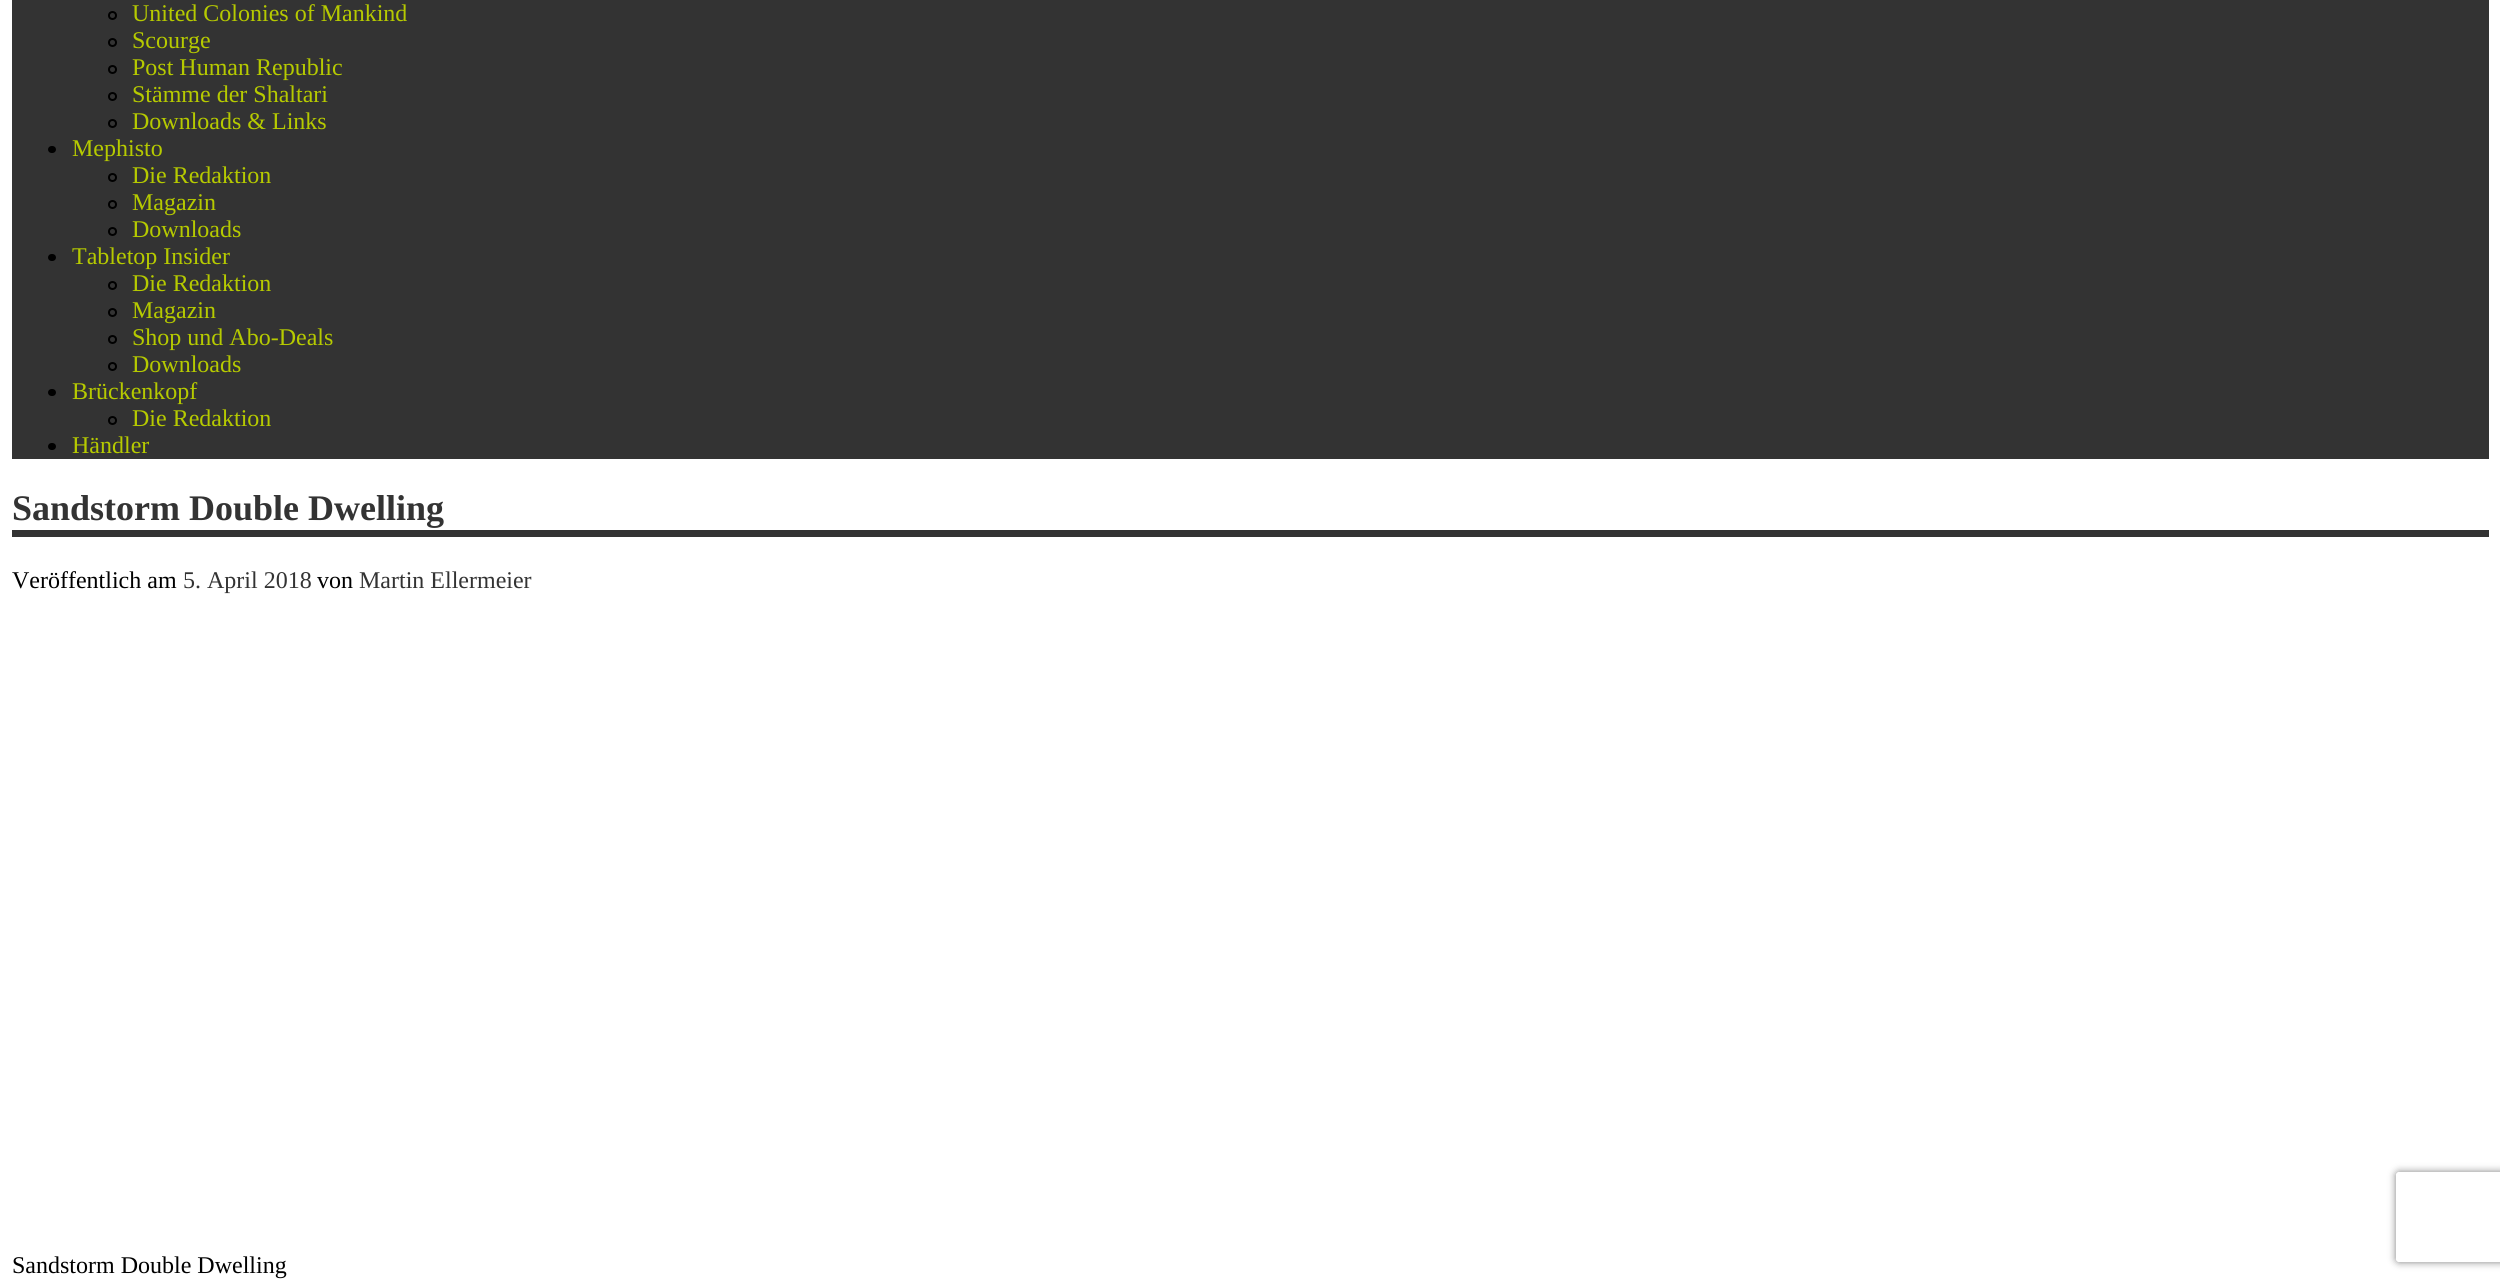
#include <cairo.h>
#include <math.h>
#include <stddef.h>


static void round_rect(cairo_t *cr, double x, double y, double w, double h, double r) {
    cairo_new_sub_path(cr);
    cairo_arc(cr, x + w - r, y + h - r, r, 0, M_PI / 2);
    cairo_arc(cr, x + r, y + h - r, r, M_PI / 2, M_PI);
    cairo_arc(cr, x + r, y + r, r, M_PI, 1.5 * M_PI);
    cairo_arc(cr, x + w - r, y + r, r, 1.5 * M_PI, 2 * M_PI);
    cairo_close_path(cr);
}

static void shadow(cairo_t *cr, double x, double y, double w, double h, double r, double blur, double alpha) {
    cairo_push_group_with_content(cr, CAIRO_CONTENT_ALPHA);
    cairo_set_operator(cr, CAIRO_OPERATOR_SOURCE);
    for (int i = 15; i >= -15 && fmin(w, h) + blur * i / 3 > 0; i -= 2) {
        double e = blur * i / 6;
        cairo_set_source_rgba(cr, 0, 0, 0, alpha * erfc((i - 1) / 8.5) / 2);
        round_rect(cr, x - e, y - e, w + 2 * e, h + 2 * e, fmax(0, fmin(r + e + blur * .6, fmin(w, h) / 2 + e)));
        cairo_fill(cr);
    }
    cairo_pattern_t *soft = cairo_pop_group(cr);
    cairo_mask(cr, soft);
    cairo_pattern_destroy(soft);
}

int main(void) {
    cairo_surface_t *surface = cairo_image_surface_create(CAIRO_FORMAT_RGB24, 2500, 1282);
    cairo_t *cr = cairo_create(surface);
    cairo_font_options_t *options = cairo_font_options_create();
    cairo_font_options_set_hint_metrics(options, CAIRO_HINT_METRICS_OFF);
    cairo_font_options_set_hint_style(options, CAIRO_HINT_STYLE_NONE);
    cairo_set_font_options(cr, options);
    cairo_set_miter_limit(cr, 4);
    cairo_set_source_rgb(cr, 1, 1, 1);
    cairo_paint(cr);
    cairo_set_source_rgb(cr, 0.2, 0.2, 0.2);
    cairo_rectangle(cr, 12, 0, 2477, 459);
    cairo_fill(cr);
    cairo_arc(cr, 112.5, 15.5, 3.5, 0, 2 * M_PI);
    cairo_set_source_rgb(cr, 0, 0, 0);
    cairo_stroke(cr);
    cairo_select_font_face(cr, "Liberation Serif", CAIRO_FONT_SLANT_NORMAL, CAIRO_FONT_WEIGHT_NORMAL);
    cairo_set_font_size(cr, 24);
    cairo_set_source_rgb(cr, 0.714, 0.792, 0);
    cairo_move_to(cr, 132, 21);
    cairo_show_text(cr, "United Colonies of Mankind");
    cairo_new_path(cr);
    cairo_arc(cr, 112.5, 42.5, 3.5, 0, 2 * M_PI);
    cairo_set_source_rgb(cr, 0, 0, 0);
    cairo_stroke(cr);
    cairo_set_source_rgb(cr, 0.714, 0.792, 0);
    cairo_move_to(cr, 132, 48);
    cairo_show_text(cr, "Scourge");
    cairo_new_path(cr);
    cairo_arc(cr, 112.5, 69.5, 3.5, 0, 2 * M_PI);
    cairo_set_source_rgb(cr, 0, 0, 0);
    cairo_stroke(cr);
    cairo_set_source_rgb(cr, 0.714, 0.792, 0);
    cairo_move_to(cr, 132, 75);
    cairo_show_text(cr, "Post Human Republic");
    cairo_new_path(cr);
    cairo_arc(cr, 112.5, 96.5, 3.5, 0, 2 * M_PI);
    cairo_set_source_rgb(cr, 0, 0, 0);
    cairo_stroke(cr);
    cairo_set_source_rgb(cr, 0.714, 0.792, 0);
    cairo_move_to(cr, 132, 102);
    cairo_show_text(cr, "Stämme der Shaltari");
    cairo_new_path(cr);
    cairo_arc(cr, 112.5, 123.5, 3.5, 0, 2 * M_PI);
    cairo_set_source_rgb(cr, 0, 0, 0);
    cairo_stroke(cr);
    cairo_set_source_rgb(cr, 0.714, 0.792, 0);
    cairo_move_to(cr, 132, 129);
    cairo_show_text(cr, "Downloads & Links");
    cairo_set_source_rgb(cr, 0, 0, 0);
    round_rect(cr, 48, 146, 8, 7, 3.5);
    cairo_fill(cr);
    cairo_set_source_rgb(cr, 0.714, 0.792, 0);
    cairo_move_to(cr, 72, 156);
    cairo_show_text(cr, "Mephisto");
    cairo_new_path(cr);
    cairo_arc(cr, 112.5, 177.5, 3.5, 0, 2 * M_PI);
    cairo_set_source_rgb(cr, 0, 0, 0);
    cairo_stroke(cr);
    cairo_set_source_rgb(cr, 0.714, 0.792, 0);
    cairo_move_to(cr, 132, 183);
    cairo_show_text(cr, "Die Redaktion");
    cairo_new_path(cr);
    cairo_arc(cr, 112.5, 204.5, 3.5, 0, 2 * M_PI);
    cairo_set_source_rgb(cr, 0, 0, 0);
    cairo_stroke(cr);
    cairo_set_source_rgb(cr, 0.714, 0.792, 0);
    cairo_move_to(cr, 132, 210);
    cairo_show_text(cr, "Magazin");
    cairo_new_path(cr);
    cairo_arc(cr, 112.5, 231.5, 3.5, 0, 2 * M_PI);
    cairo_set_source_rgb(cr, 0, 0, 0);
    cairo_stroke(cr);
    cairo_set_source_rgb(cr, 0.714, 0.792, 0);
    cairo_move_to(cr, 132, 237);
    cairo_show_text(cr, "Downloads");
    cairo_set_source_rgb(cr, 0, 0, 0);
    round_rect(cr, 48, 254, 8, 7, 3.5);
    cairo_fill(cr);
    cairo_set_source_rgb(cr, 0.714, 0.792, 0);
    cairo_move_to(cr, 72, 264);
    cairo_show_text(cr, "Tabletop Insider");
    cairo_new_path(cr);
    cairo_arc(cr, 112.5, 285.5, 3.5, 0, 2 * M_PI);
    cairo_set_source_rgb(cr, 0, 0, 0);
    cairo_stroke(cr);
    cairo_set_source_rgb(cr, 0.714, 0.792, 0);
    cairo_move_to(cr, 132, 291);
    cairo_show_text(cr, "Die Redaktion");
    cairo_new_path(cr);
    cairo_arc(cr, 112.5, 312.5, 3.5, 0, 2 * M_PI);
    cairo_set_source_rgb(cr, 0, 0, 0);
    cairo_stroke(cr);
    cairo_set_source_rgb(cr, 0.714, 0.792, 0);
    cairo_move_to(cr, 132, 318);
    cairo_show_text(cr, "Magazin");
    cairo_new_path(cr);
    cairo_arc(cr, 112.5, 339.5, 3.5, 0, 2 * M_PI);
    cairo_set_source_rgb(cr, 0, 0, 0);
    cairo_stroke(cr);
    cairo_set_source_rgb(cr, 0.714, 0.792, 0);
    cairo_move_to(cr, 132, 345);
    cairo_show_text(cr, "Shop und Abo-Deals");
    cairo_new_path(cr);
    cairo_arc(cr, 112.5, 366.5, 3.5, 0, 2 * M_PI);
    cairo_set_source_rgb(cr, 0, 0, 0);
    cairo_stroke(cr);
    cairo_set_source_rgb(cr, 0.714, 0.792, 0);
    cairo_move_to(cr, 132, 372);
    cairo_show_text(cr, "Downloads");
    cairo_set_source_rgb(cr, 0, 0, 0);
    round_rect(cr, 48, 389, 8, 7, 3.5);
    cairo_fill(cr);
    cairo_set_source_rgb(cr, 0.714, 0.792, 0);
    cairo_move_to(cr, 72, 399);
    cairo_show_text(cr, "Brückenkopf");
    cairo_new_path(cr);
    cairo_arc(cr, 112.5, 420.5, 3.5, 0, 2 * M_PI);
    cairo_set_source_rgb(cr, 0, 0, 0);
    cairo_stroke(cr);
    cairo_set_source_rgb(cr, 0.714, 0.792, 0);
    cairo_move_to(cr, 132, 426);
    cairo_show_text(cr, "Die Redaktion");
    cairo_set_source_rgb(cr, 0, 0, 0);
    round_rect(cr, 48, 443, 8, 7, 3.5);
    cairo_fill(cr);
    cairo_set_source_rgb(cr, 0.714, 0.792, 0);
    cairo_move_to(cr, 72, 453);
    cairo_show_text(cr, "Händler");
    cairo_set_source_rgb(cr, 0.2, 0.2, 0.2);
    cairo_rectangle(cr, 12, 530, 2477, 7);
    cairo_fill(cr);
    cairo_select_font_face(cr, "Liberation Serif", CAIRO_FONT_SLANT_NORMAL, CAIRO_FONT_WEIGHT_BOLD);
    cairo_set_font_size(cr, 36);
    cairo_move_to(cr, 12, 520);
    cairo_show_text(cr, "Sandstorm Double Dwelling");
    cairo_select_font_face(cr, "Liberation Serif", CAIRO_FONT_SLANT_NORMAL, CAIRO_FONT_WEIGHT_NORMAL);
    cairo_set_font_size(cr, 24);
    cairo_set_source_rgb(cr, 0, 0, 0);
    cairo_move_to(cr, 12, 588);
    cairo_show_text(cr, "Veröffentlich am");
    cairo_set_source_rgb(cr, 0.2, 0.2, 0.2);
    cairo_move_to(cr, 183, 588);
    cairo_show_text(cr, "5. April 2018");
    cairo_set_source_rgb(cr, 0, 0, 0);
    cairo_move_to(cr, 317, 588);
    cairo_show_text(cr, "von");
    cairo_set_source_rgb(cr, 0.2, 0.2, 0.2);
    cairo_move_to(cr, 359, 588);
    cairo_show_text(cr, "Martin Ellermeier");
    cairo_set_source_rgb(cr, 0, 0, 0);
    cairo_move_to(cr, 12, 1273);
    cairo_show_text(cr, "Sandstorm Double Dwelling");
    cairo_save(cr);
    cairo_set_fill_rule(cr, CAIRO_FILL_RULE_EVEN_ODD);
    cairo_new_path(cr);
    cairo_move_to(cr, 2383, 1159);
    cairo_line_to(cr, 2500, 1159);
    cairo_line_to(cr, 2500, 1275);
    cairo_line_to(cr, 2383, 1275);
    cairo_close_path(cr);
    cairo_move_to(cr, 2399, 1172);
    cairo_line_to(cr, 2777, 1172);
    cairo_curve_to(cr, 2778.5, 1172, 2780, 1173.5, 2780, 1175);
    cairo_line_to(cr, 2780, 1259);
    cairo_curve_to(cr, 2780, 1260.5, 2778.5, 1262, 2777, 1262);
    cairo_line_to(cr, 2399, 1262);
    cairo_curve_to(cr, 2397.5, 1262, 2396, 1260.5, 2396, 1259);
    cairo_line_to(cr, 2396, 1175);
    cairo_curve_to(cr, 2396, 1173.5, 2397.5, 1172, 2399, 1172);
    cairo_close_path(cr);
    cairo_clip(cr);
    cairo_set_source_rgb(cr, 0.502, 0.502, 0.502);
    shadow(cr, 2396, 1172, 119, 90, 3, 4, 1);
    cairo_restore(cr);
    cairo_surface_write_to_png(surface, "page.png");
    cairo_font_options_destroy(options);
    cairo_destroy(cr);
    cairo_surface_destroy(surface);
    return 0;
}
